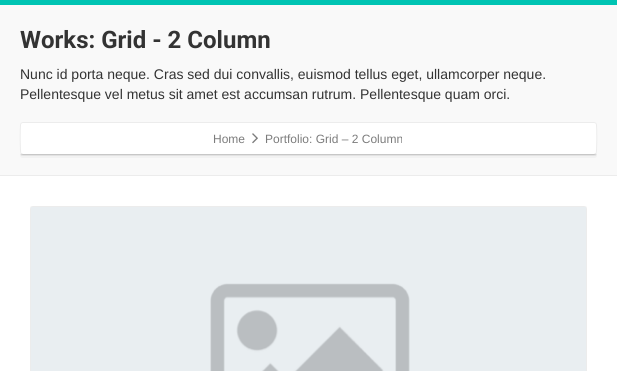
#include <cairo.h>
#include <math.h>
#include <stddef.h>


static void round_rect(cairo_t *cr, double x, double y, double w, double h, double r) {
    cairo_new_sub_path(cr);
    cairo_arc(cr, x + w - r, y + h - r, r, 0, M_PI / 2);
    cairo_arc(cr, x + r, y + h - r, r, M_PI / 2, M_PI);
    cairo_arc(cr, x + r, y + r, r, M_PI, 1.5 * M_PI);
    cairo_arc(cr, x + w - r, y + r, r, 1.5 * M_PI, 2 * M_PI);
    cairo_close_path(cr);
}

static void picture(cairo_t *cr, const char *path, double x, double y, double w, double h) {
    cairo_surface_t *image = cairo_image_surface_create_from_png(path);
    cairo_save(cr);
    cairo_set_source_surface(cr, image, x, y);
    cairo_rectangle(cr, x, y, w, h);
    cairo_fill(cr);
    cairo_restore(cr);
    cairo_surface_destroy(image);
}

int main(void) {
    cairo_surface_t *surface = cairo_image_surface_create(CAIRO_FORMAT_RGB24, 617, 371);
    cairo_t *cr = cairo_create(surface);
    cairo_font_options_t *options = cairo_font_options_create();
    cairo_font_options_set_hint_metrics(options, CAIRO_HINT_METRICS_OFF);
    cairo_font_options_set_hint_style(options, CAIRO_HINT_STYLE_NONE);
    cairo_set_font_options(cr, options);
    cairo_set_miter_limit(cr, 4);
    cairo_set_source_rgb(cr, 1, 1, 1);
    cairo_paint(cr);
    cairo_set_source_rgb(cr, 0, 0.769, 0.702);
    cairo_rectangle(cr, 0, 0, 617, 5);
    cairo_fill(cr);
    cairo_set_source_rgb(cr, 0.976, 0.976, 0.976);
    cairo_rectangle(cr, 0, 5, 617, 170);
    cairo_fill(cr);
    cairo_set_source_rgb(cr, 0.922, 0.922, 0.922);
    cairo_rectangle(cr, 0, 175, 617, 1);
    cairo_fill(cr);
    cairo_select_font_face(cr, "Roboto", CAIRO_FONT_SLANT_NORMAL, CAIRO_FONT_WEIGHT_BOLD);
    cairo_set_font_size(cr, 24);
    cairo_set_source_rgb(cr, 0.2, 0.2, 0.2);
    cairo_move_to(cr, 20, 48);
    cairo_show_text(cr, "Works: Grid - 2 Column");
    cairo_select_font_face(cr, "Liberation Sans", CAIRO_FONT_SLANT_NORMAL, CAIRO_FONT_WEIGHT_NORMAL);
    cairo_set_font_size(cr, 14);
    cairo_move_to(cr, 20, 79);
    cairo_show_text(cr, "Nunc id porta neque. Cras sed dui convallis, euismod tellus eget, ullamcorper neque.");
    cairo_move_to(cr, 20, 99);
    cairo_show_text(cr, "Pellentesque vel metus sit amet est accumsan rutrum. Pellentesque quam orci.");
    cairo_set_source_rgb(cr, 0.91, 0.91, 0.91);
    cairo_new_path(cr);
    cairo_move_to(cr, 20, 152);
    cairo_line_to(cr, 20, 153);
    cairo_curve_to(cr, 20, 155, 21, 156, 23, 156);
    cairo_line_to(cr, 594, 156);
    cairo_curve_to(cr, 596, 156, 597, 155, 597, 153);
    cairo_line_to(cr, 597, 152);
    cairo_curve_to(cr, 597, 154, 596, 155, 594, 155);
    cairo_line_to(cr, 23, 155);
    cairo_curve_to(cr, 21, 155, 20, 154, 20, 152);
    cairo_close_path(cr);
    cairo_fill(cr);
    cairo_set_source_rgba(cr, 0, 0, 0, 0.03);
    cairo_new_path(cr);
    cairo_move_to(cr, 20, 152);
    cairo_line_to(cr, 20, 155);
    cairo_curve_to(cr, 20, 157, 21, 158, 23, 158);
    cairo_line_to(cr, 594, 158);
    cairo_curve_to(cr, 596, 158, 597, 157, 597, 155);
    cairo_line_to(cr, 597, 152);
    cairo_curve_to(cr, 597, 154, 596, 155, 594, 155);
    cairo_line_to(cr, 23, 155);
    cairo_curve_to(cr, 21, 155, 20, 154, 20, 152);
    cairo_close_path(cr);
    cairo_fill(cr);
    cairo_set_source_rgb(cr, 1, 1, 1);
    round_rect(cr, 20, 122, 577, 33, 3);
    cairo_fill(cr);
    cairo_new_path(cr);
    cairo_move_to(cr, 596, 154);
    cairo_line_to(cr, 594, 154.5);
    cairo_line_to(cr, 23, 154.5);
    cairo_line_to(cr, 21, 154);
    cairo_set_source_rgba(cr, 0, 0, 0, 0.22);
    cairo_set_line_width(cr, 1);
    cairo_stroke(cr);
    cairo_new_path(cr);
    cairo_move_to(cr, 21, 154);
    cairo_curve_to(cr, 20, 152.5, 20, 128, 20.5, 125);
    cairo_curve_to(cr, 20.5, 123.5, 21.5, 122.5, 23, 122.5);
    cairo_line_to(cr, 594, 122.5);
    cairo_curve_to(cr, 595.5, 122.5, 596.5, 123.5, 596.5, 125);
    cairo_curve_to(cr, 597, 128, 597, 152.5, 596, 154);
    cairo_set_source_rgb(cr, 0.922, 0.922, 0.922);
    cairo_stroke(cr);
    cairo_set_font_size(cr, 12);
    cairo_set_source_rgb(cr, 0.486, 0.486, 0.486);
    cairo_move_to(cr, 213, 143);
    cairo_show_text(cr, "Home");
    picture(cr, "img1.png", 252, 133, 6, 11);
    cairo_move_to(cr, 265, 143);
    cairo_show_text(cr, "Portfolio: Grid – 2 Column");
    cairo_new_path(cr);
    cairo_move_to(cr, 31, 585);
    cairo_line_to(cr, 30.5, 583);
    cairo_line_to(cr, 30.5, 209);
    cairo_line_to(cr, 31, 207);
    cairo_line_to(cr, 33, 206.5);
    cairo_line_to(cr, 584, 206.5);
    cairo_line_to(cr, 586, 207);
    cairo_line_to(cr, 586.5, 209);
    cairo_line_to(cr, 586.5, 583);
    cairo_line_to(cr, 586, 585);
    cairo_set_source_rgb(cr, 0.922, 0.922, 0.922);
    cairo_stroke(cr);
    picture(cr, "img2.png", 31, 207, 555, 164);
    cairo_surface_write_to_png(surface, "page.png");
    cairo_font_options_destroy(options);
    cairo_destroy(cr);
    cairo_surface_destroy(surface);
    return 0;
}
